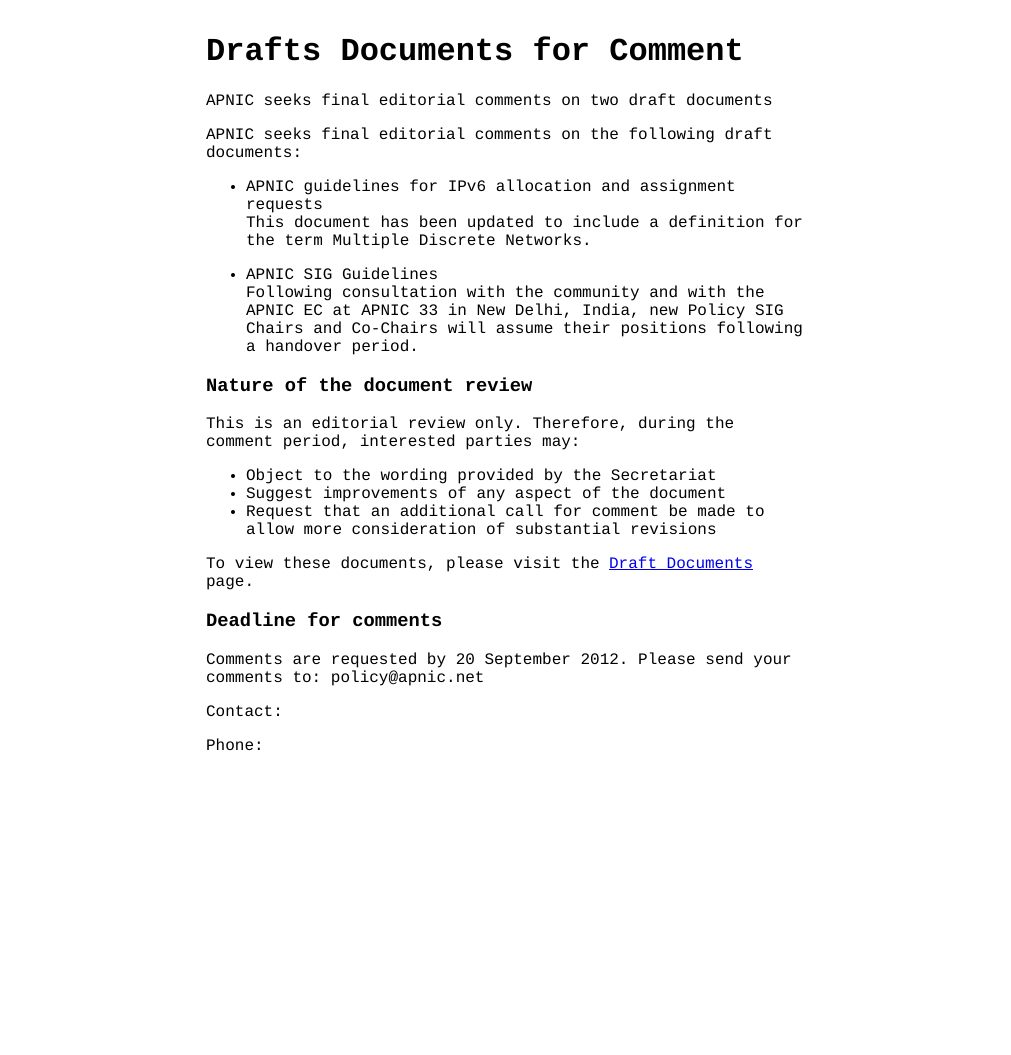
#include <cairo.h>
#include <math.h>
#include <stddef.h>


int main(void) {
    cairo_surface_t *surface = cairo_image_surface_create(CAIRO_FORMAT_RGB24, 1011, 1055);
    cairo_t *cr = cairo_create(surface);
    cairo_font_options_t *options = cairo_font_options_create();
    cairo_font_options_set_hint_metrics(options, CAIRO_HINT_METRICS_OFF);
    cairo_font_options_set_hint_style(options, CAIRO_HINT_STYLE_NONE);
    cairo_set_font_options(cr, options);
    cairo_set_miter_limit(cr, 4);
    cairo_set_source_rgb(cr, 1, 1, 1);
    cairo_paint(cr);
    cairo_select_font_face(cr, "Liberation Mono", CAIRO_FONT_SLANT_NORMAL, CAIRO_FONT_WEIGHT_BOLD);
    cairo_set_font_size(cr, 32);
    cairo_set_source_rgb(cr, 0, 0, 0);
    cairo_move_to(cr, 206, 60);
    cairo_show_text(cr, "Drafts Documents for Comment");
    cairo_select_font_face(cr, "Liberation Mono", CAIRO_FONT_SLANT_NORMAL, CAIRO_FONT_WEIGHT_NORMAL);
    cairo_set_font_size(cr, 16);
    cairo_move_to(cr, 206, 105);
    cairo_show_text(cr, "APNIC seeks final editorial comments on two draft documents");
    cairo_move_to(cr, 206, 139);
    cairo_show_text(cr, "APNIC seeks final editorial comments on the following draft");
    cairo_move_to(cr, 206, 157);
    cairo_show_text(cr, "documents:");
    cairo_new_path(cr);
    cairo_arc(cr, 233, 187, 2, 0, 2 * M_PI);
    cairo_fill(cr);
    cairo_move_to(cr, 246, 191);
    cairo_show_text(cr, "APNIC guidelines for IPv6 allocation and assignment");
    cairo_move_to(cr, 246, 209);
    cairo_show_text(cr, "requests");
    cairo_move_to(cr, 246, 227);
    cairo_show_text(cr, "This document has been updated to include a definition for");
    cairo_move_to(cr, 246, 245);
    cairo_show_text(cr, "the term Multiple Discrete Networks.");
    cairo_new_path(cr);
    cairo_arc(cr, 233, 275, 2, 0, 2 * M_PI);
    cairo_fill(cr);
    cairo_move_to(cr, 246, 279);
    cairo_show_text(cr, "APNIC SIG Guidelines");
    cairo_move_to(cr, 246, 297);
    cairo_show_text(cr, "Following consultation with the community and with the");
    cairo_move_to(cr, 246, 315);
    cairo_show_text(cr, "APNIC EC at APNIC 33 in New Delhi, India, new Policy SIG");
    cairo_move_to(cr, 246, 333);
    cairo_show_text(cr, "Chairs and Co-Chairs will assume their positions following");
    cairo_move_to(cr, 246, 351);
    cairo_show_text(cr, "a handover period.");
    cairo_select_font_face(cr, "Liberation Mono", CAIRO_FONT_SLANT_NORMAL, CAIRO_FONT_WEIGHT_BOLD);
    cairo_set_font_size(cr, 18.75);
    cairo_move_to(cr, 206, 391);
    cairo_show_text(cr, "Nature of the document review");
    cairo_select_font_face(cr, "Liberation Mono", CAIRO_FONT_SLANT_NORMAL, CAIRO_FONT_WEIGHT_NORMAL);
    cairo_set_font_size(cr, 16);
    cairo_move_to(cr, 206, 428);
    cairo_show_text(cr, "This is an editorial review only. Therefore, during the");
    cairo_move_to(cr, 206, 446);
    cairo_show_text(cr, "comment period, interested parties may:");
    cairo_new_path(cr);
    cairo_arc(cr, 233, 476, 2, 0, 2 * M_PI);
    cairo_fill(cr);
    cairo_move_to(cr, 246, 480);
    cairo_show_text(cr, "Object to the wording provided by the Secretariat");
    cairo_new_path(cr);
    cairo_arc(cr, 233, 494, 2, 0, 2 * M_PI);
    cairo_fill(cr);
    cairo_move_to(cr, 246, 498);
    cairo_show_text(cr, "Suggest improvements of any aspect of the document");
    cairo_new_path(cr);
    cairo_arc(cr, 233, 512, 2, 0, 2 * M_PI);
    cairo_fill(cr);
    cairo_move_to(cr, 246, 516);
    cairo_show_text(cr, "Request that an additional call for comment be made to");
    cairo_move_to(cr, 246, 534);
    cairo_show_text(cr, "allow more consideration of substantial revisions");
    cairo_move_to(cr, 206, 568);
    cairo_show_text(cr, "To view these documents, please visit the");
    cairo_set_source_rgb(cr, 0, 0, 0.933);
    cairo_move_to(cr, 609, 568);
    cairo_show_text(cr, "Draft Documents");
    cairo_rectangle(cr, 609, 569, 144, 1);
    cairo_fill(cr);
    cairo_set_source_rgb(cr, 0, 0, 0);
    cairo_move_to(cr, 206, 586);
    cairo_show_text(cr, "page.");
    cairo_select_font_face(cr, "Liberation Mono", CAIRO_FONT_SLANT_NORMAL, CAIRO_FONT_WEIGHT_BOLD);
    cairo_set_font_size(cr, 18.75);
    cairo_move_to(cr, 206, 626);
    cairo_show_text(cr, "Deadline for comments");
    cairo_select_font_face(cr, "Liberation Mono", CAIRO_FONT_SLANT_NORMAL, CAIRO_FONT_WEIGHT_NORMAL);
    cairo_set_font_size(cr, 16);
    cairo_move_to(cr, 206, 664);
    cairo_show_text(cr, "Comments are requested by 20 September 2012. Please send your");
    cairo_move_to(cr, 206, 682);
    cairo_show_text(cr, "comments to: policy@apnic.net");
    cairo_move_to(cr, 206, 716);
    cairo_show_text(cr, "Contact:");
    cairo_move_to(cr, 206, 750);
    cairo_show_text(cr, "Phone:");
    cairo_surface_write_to_png(surface, "page.png");
    cairo_font_options_destroy(options);
    cairo_destroy(cr);
    cairo_surface_destroy(surface);
    return 0;
}
